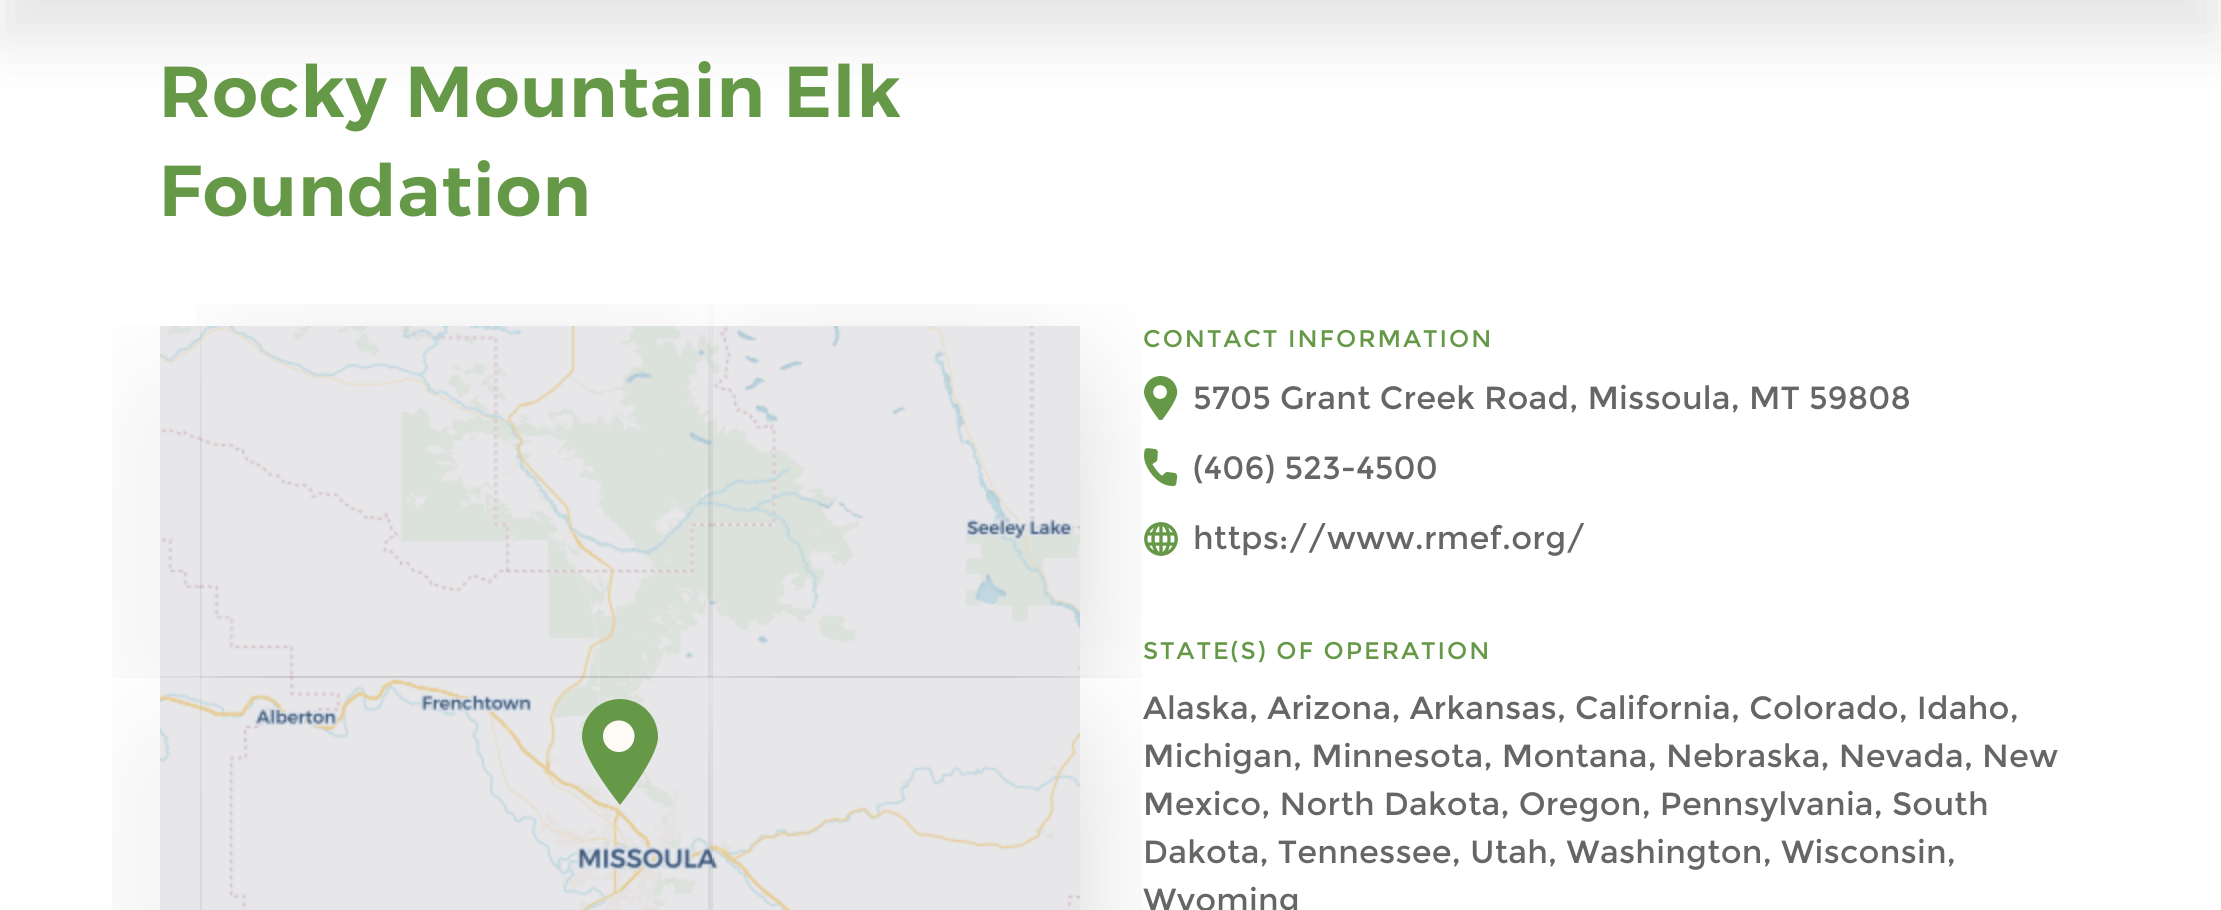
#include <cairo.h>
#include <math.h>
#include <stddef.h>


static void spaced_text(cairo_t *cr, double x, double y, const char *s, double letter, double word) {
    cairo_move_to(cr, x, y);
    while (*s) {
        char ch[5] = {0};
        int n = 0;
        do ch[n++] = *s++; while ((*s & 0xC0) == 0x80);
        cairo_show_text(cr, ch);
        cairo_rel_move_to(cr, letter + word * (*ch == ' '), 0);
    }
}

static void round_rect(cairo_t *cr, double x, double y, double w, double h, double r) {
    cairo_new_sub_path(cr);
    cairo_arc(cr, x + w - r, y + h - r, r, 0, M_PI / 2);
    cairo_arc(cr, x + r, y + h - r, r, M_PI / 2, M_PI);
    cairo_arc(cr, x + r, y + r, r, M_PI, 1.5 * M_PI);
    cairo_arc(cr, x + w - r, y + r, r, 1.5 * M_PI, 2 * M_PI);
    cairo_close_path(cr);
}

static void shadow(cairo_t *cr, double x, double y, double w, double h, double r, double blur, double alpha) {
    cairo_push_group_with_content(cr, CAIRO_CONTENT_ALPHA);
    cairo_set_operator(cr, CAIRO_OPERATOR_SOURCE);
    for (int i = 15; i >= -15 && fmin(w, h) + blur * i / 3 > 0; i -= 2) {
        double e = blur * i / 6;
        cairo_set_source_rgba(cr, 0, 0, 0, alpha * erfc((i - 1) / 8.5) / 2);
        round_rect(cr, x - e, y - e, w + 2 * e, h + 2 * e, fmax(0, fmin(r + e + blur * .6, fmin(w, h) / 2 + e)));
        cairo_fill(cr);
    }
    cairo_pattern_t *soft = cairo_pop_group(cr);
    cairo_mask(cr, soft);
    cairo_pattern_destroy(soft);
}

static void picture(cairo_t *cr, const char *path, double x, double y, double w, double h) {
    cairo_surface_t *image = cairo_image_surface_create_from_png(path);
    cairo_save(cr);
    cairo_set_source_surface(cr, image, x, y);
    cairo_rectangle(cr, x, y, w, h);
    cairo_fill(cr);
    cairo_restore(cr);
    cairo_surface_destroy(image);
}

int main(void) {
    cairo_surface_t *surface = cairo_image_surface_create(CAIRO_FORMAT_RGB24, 2221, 910);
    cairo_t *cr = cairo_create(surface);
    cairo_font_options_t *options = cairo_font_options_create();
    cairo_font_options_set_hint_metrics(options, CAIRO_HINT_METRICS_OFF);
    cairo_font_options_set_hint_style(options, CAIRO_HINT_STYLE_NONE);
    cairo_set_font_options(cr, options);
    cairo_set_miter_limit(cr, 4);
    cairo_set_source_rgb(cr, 1, 1, 1);
    cairo_paint(cr);
    cairo_set_source_rgb(cr, 0, 0, 0);
    shadow(cr, 0, -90, 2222, 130, 0, 30, 0.1);
    cairo_select_font_face(cr, "Montserrat SemiBold", CAIRO_FONT_SLANT_NORMAL, CAIRO_FONT_WEIGHT_NORMAL);
    cairo_set_font_size(cr, 72);
    cairo_set_source_rgb(cr, 0.4, 0.6, 0.278);
    spaced_text(cr, 159, 117, "Rocky Mountain Elk", 1, 0);
    spaced_text(cr, 159, 216, "Foundation", 1, 0);
    cairo_set_source_rgb(cr, 0.867, 0.867, 0.867);
    cairo_rectangle(cr, 160, 326, 920, 584);
    cairo_fill(cr);
    picture(cr, "img5.png", 199, 675, 514, 235);
    picture(cr, "img2.png", 196, 304, 518, 374);
    picture(cr, "img4.png", 112, 676, 90, 234);
    picture(cr, "img1.png", 112, 326, 90, 352);
    picture(cr, "img6.png", 708, 675, 434, 235);
    picture(cr, "img3.png", 708, 304, 434, 374);
    cairo_set_source_rgba(cr, 0.212, 0.298, 0.573, 0.1);
    cairo_rectangle(cr, 160, 326, 920, 584);
    cairo_fill(cr);
    cairo_set_source_rgb(cr, 0.4, 0.6, 0.278);
    cairo_new_path(cr);
    cairo_move_to(cr, 582, 737);
    cairo_curve_to(cr, 582, 758, 620, 805, 620, 805);
    cairo_curve_to(cr, 620, 805, 658, 758, 658, 737);
    cairo_curve_to(cr, 658, 716, 641, 699, 620, 699);
    cairo_curve_to(cr, 599, 699, 582, 716, 582, 737);
    cairo_close_path(cr);
    cairo_fill(cr);
    cairo_set_source_rgb(cr, 0.996, 0.984, 0.965);
    cairo_new_path(cr);
    cairo_move_to(cr, 619, 752);
    cairo_curve_to(cr, 610, 752, 603, 745, 603, 736);
    cairo_curve_to(cr, 603, 727.5, 610, 720.5, 619, 720.5);
    cairo_curve_to(cr, 627.5, 720.5, 634.5, 727.5, 634.5, 736);
    cairo_curve_to(cr, 634.5, 745, 627.5, 752, 619, 752);
    cairo_close_path(cr);
    cairo_fill(cr);
    cairo_select_font_face(cr, "Montserrat", CAIRO_FONT_SLANT_NORMAL, CAIRO_FONT_WEIGHT_NORMAL);
    cairo_set_font_size(cr, 24);
    cairo_set_source_rgb(cr, 0.4, 0.6, 0.278);
    spaced_text(cr, 1143, 347, "CONTACT INFORMATION", 2, 0);
    picture(cr, "img7.png", 1144, 376, 34, 44);
    cairo_set_font_size(cr, 32);
    cairo_set_source_rgb(cr, 0.4, 0.4, 0.4);
    spaced_text(cr, 1193, 409, "5705 Grant Creek Road, Missoula, MT 59808", 0.2, 0);
    picture(cr, "img8.png", 1144, 448, 34, 39);
    spaced_text(cr, 1193, 479, "(406) 523-4500", 0.2, 0);
    picture(cr, "img9.png", 1144, 522, 34, 34);
    spaced_text(cr, 1193, 549, "https://www.rmef.org/", 0.2, 0);
    cairo_set_font_size(cr, 24);
    cairo_set_source_rgb(cr, 0.4, 0.6, 0.278);
    spaced_text(cr, 1143, 659, "STATE(S) OF OPERATION", 2, 0);
    cairo_set_font_size(cr, 32);
    cairo_set_source_rgb(cr, 0.4, 0.4, 0.4);
    spaced_text(cr, 1143, 719, "Alaska, Arizona, Arkansas, California, Colorado, Idaho,", 0.2, 0);
    spaced_text(cr, 1143, 767, "Michigan, Minnesota, Montana, Nebraska, Nevada, New", 0.2, 0);
    spaced_text(cr, 1143, 815, "Mexico, North Dakota, Oregon, Pennsylvania, South", 0.2, 0);
    spaced_text(cr, 1143, 863, "Dakota, Tennessee, Utah, Washington, Wisconsin,", 0.2, 0);
    spaced_text(cr, 1143, 911, "Wyoming", 0.2, 0);
    cairo_surface_write_to_png(surface, "page.png");
    cairo_font_options_destroy(options);
    cairo_destroy(cr);
    cairo_surface_destroy(surface);
    return 0;
}
